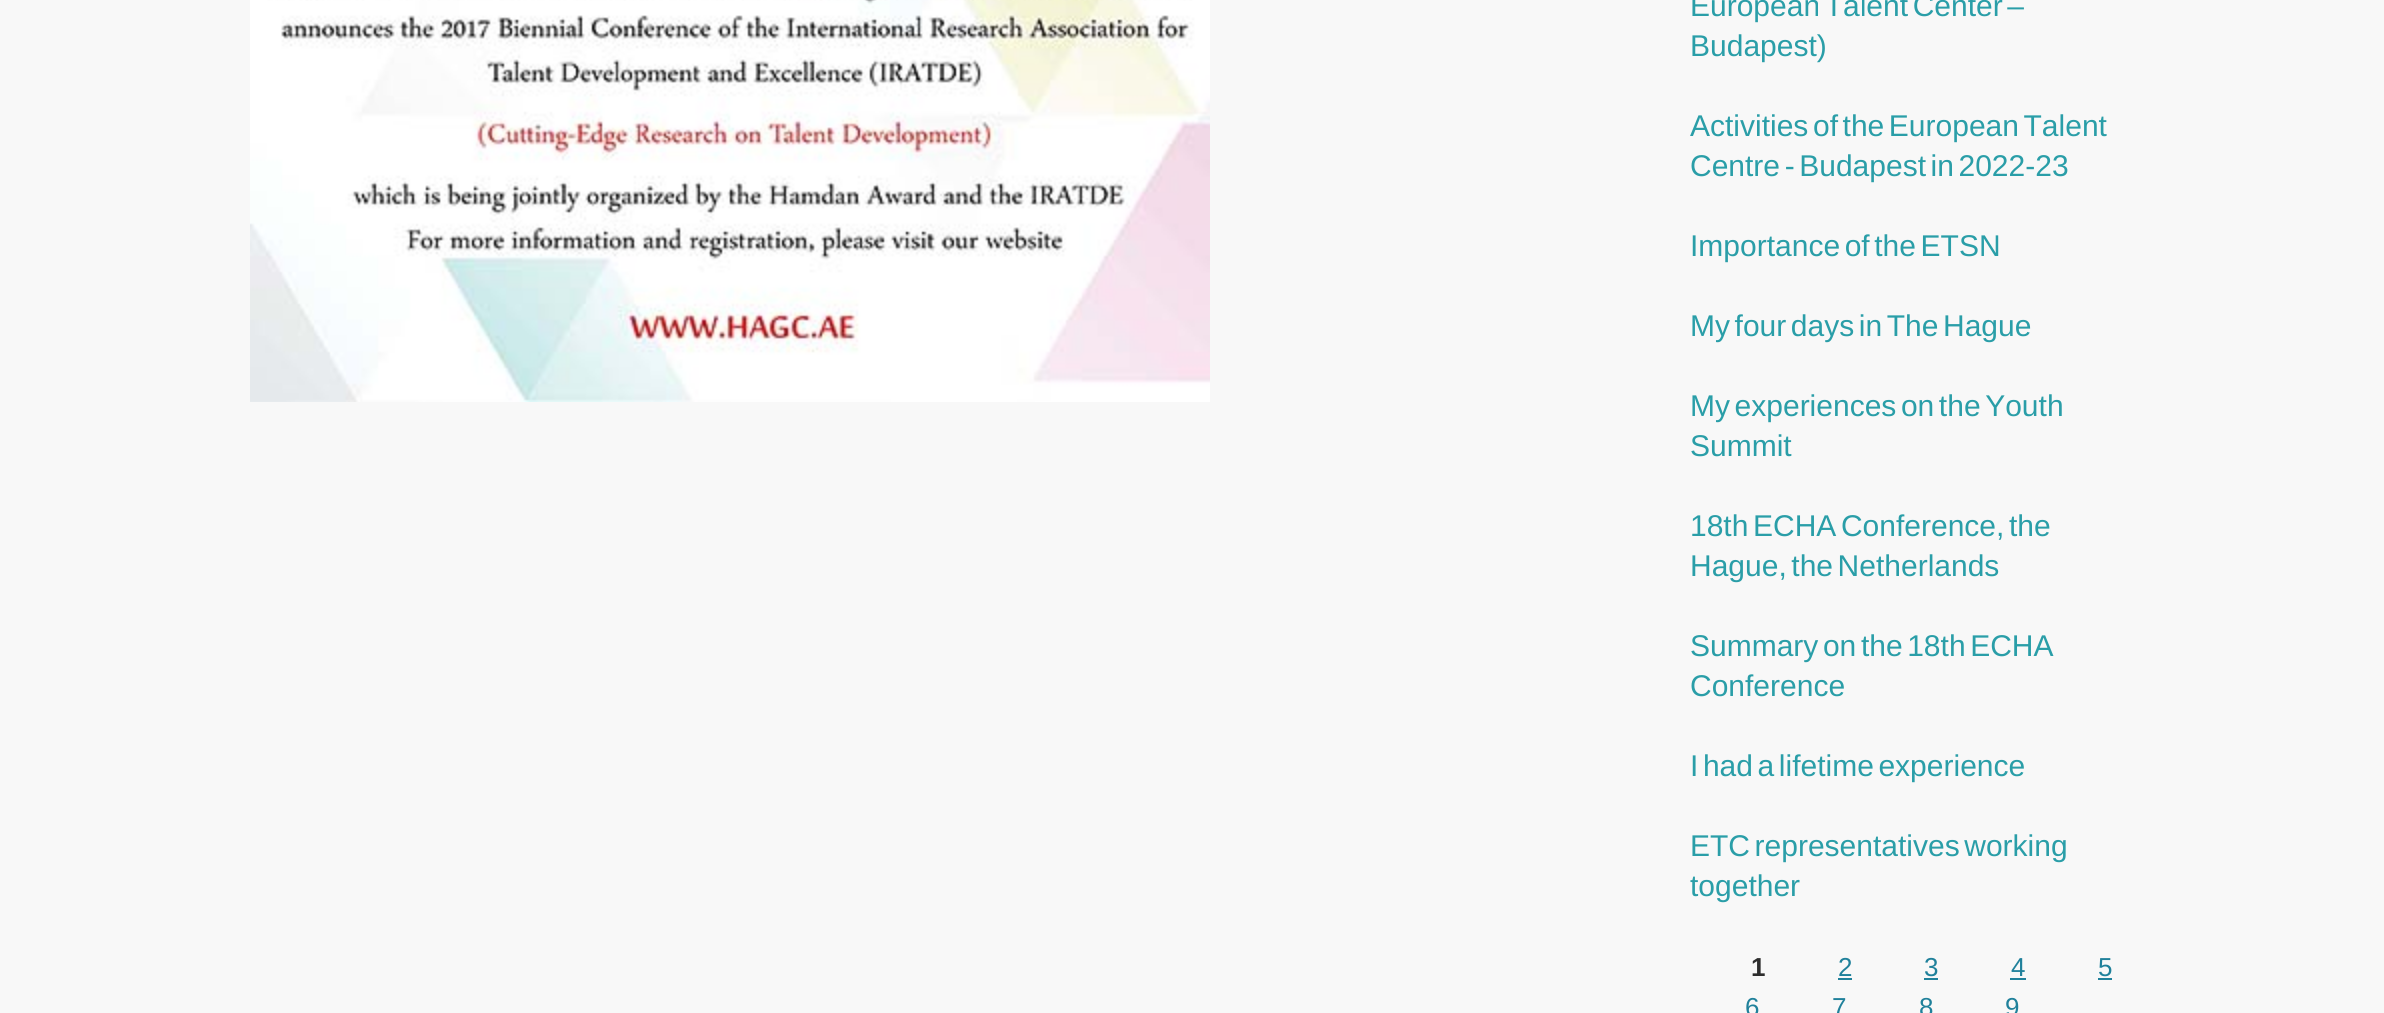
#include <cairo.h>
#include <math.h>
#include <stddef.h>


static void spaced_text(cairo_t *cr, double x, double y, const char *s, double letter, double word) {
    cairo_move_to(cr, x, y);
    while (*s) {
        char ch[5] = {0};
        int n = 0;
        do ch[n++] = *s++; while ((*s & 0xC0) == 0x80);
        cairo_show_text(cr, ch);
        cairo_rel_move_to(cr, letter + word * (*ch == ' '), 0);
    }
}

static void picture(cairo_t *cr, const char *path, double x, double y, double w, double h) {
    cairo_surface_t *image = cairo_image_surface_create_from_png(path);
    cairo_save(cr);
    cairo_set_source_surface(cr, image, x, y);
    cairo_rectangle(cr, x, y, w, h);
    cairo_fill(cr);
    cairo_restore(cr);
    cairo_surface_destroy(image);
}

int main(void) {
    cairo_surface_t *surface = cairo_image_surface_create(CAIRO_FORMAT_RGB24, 2384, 1013);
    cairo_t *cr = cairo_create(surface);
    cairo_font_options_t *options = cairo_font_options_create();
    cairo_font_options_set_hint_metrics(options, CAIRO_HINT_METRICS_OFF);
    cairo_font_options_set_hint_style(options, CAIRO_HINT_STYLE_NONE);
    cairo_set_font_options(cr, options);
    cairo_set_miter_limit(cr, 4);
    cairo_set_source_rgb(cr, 0.969, 0.969, 0.969);
    cairo_paint(cr);
    picture(cr, "img1.png", 250, 0, 960, 402);
    cairo_select_font_face(cr, "Liberation Sans", CAIRO_FONT_SLANT_NORMAL, CAIRO_FONT_WEIGHT_NORMAL);
    cairo_set_font_size(cr, 30);
    cairo_set_source_rgb(cr, 0.165, 0.62, 0.659);
    spaced_text(cr, 1690, 16, "European Talent Center –", 0, -3.75);
    cairo_move_to(cr, 1690, 56);
    cairo_show_text(cr, "Budapest)");
    spaced_text(cr, 1690, 136, "Activities of the European Talent", 0, -3.75);
    spaced_text(cr, 1690, 176, "Centre - Budapest in 2022-23", 0, -3.75);
    spaced_text(cr, 1690, 256, "Importance of the ETSN", 0, -3.75);
    spaced_text(cr, 1690, 336, "My four days in The Hague", 0, -3.75);
    spaced_text(cr, 1690, 416, "My experiences on the Youth", 0, -3.75);
    cairo_move_to(cr, 1690, 456);
    cairo_show_text(cr, "Summit");
    spaced_text(cr, 1690, 536, "18th ECHA Conference, the", 0, -3.75);
    spaced_text(cr, 1690, 576, "Hague, the Netherlands", 0, -3.75);
    spaced_text(cr, 1690, 656, "Summary on the 18th ECHA", 0, -3.75);
    cairo_move_to(cr, 1690, 696);
    cairo_show_text(cr, "Conference");
    spaced_text(cr, 1690, 776, "I had a lifetime experience", 0, -3.75);
    spaced_text(cr, 1690, 856, "ETC representatives working", 0, -3.75);
    cairo_move_to(cr, 1690, 896);
    cairo_show_text(cr, "together");
    cairo_select_font_face(cr, "Liberation Sans", CAIRO_FONT_SLANT_NORMAL, CAIRO_FONT_WEIGHT_BOLD);
    cairo_set_font_size(cr, 26);
    cairo_set_source_rgb(cr, 0.176, 0.176, 0.176);
    cairo_move_to(cr, 1751, 976);
    cairo_show_text(cr, "1");
    cairo_select_font_face(cr, "Liberation Sans", CAIRO_FONT_SLANT_NORMAL, CAIRO_FONT_WEIGHT_NORMAL);
    cairo_set_source_rgb(cr, 0.125, 0.506, 0.608);
    cairo_move_to(cr, 1838, 976);
    cairo_show_text(cr, "2");
    cairo_rectangle(cr, 1838, 978, 14, 2);
    cairo_fill(cr);
    cairo_move_to(cr, 1924, 976);
    cairo_show_text(cr, "3");
    cairo_rectangle(cr, 1924, 978, 14, 2);
    cairo_fill(cr);
    cairo_move_to(cr, 2011, 976);
    cairo_show_text(cr, "4");
    cairo_rectangle(cr, 2010, 978, 16, 2);
    cairo_fill(cr);
    cairo_move_to(cr, 2098, 976);
    cairo_show_text(cr, "5");
    cairo_rectangle(cr, 2098, 978, 14, 2);
    cairo_fill(cr);
    cairo_move_to(cr, 1745, 1016);
    cairo_show_text(cr, "6");
    cairo_move_to(cr, 1832, 1016);
    cairo_show_text(cr, "7");
    cairo_move_to(cr, 1919, 1016);
    cairo_show_text(cr, "8");
    cairo_move_to(cr, 2005, 1016);
    cairo_show_text(cr, "9");
    cairo_surface_write_to_png(surface, "page.png");
    cairo_font_options_destroy(options);
    cairo_destroy(cr);
    cairo_surface_destroy(surface);
    return 0;
}
